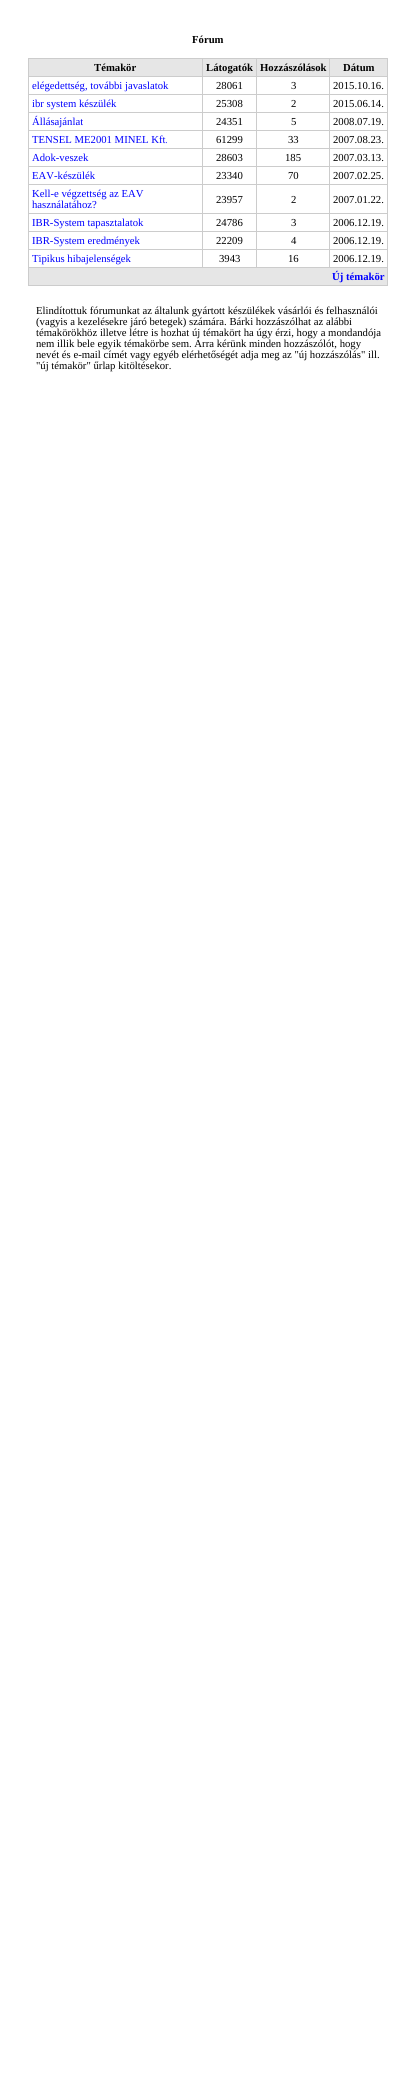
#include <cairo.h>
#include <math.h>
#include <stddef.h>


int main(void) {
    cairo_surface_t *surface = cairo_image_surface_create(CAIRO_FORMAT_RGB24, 416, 2095);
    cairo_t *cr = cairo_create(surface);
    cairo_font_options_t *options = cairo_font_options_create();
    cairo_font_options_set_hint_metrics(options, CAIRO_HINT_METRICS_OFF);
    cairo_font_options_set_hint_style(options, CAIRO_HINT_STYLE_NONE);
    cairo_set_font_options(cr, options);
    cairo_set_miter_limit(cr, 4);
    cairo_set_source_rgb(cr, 1, 1, 1);
    cairo_paint(cr);
    cairo_select_font_face(cr, "Liberation Serif", CAIRO_FONT_SLANT_NORMAL, CAIRO_FONT_WEIGHT_BOLD);
    cairo_set_font_size(cr, 10.7);
    cairo_set_source_rgb(cr, 0, 0, 0);
    cairo_move_to(cr, 192, 43);
    cairo_show_text(cr, "Fórum");
    cairo_set_source_rgb(cr, 0.8, 0.8, 0.8);
    cairo_rectangle(cr, 28, 58, 360, 228);
    cairo_fill(cr);
    cairo_set_source_rgb(cr, 0.902, 0.902, 0.902);
    cairo_rectangle(cr, 29, 59, 173, 17);
    cairo_fill(cr);
    cairo_set_source_rgb(cr, 0, 0, 0);
    cairo_move_to(cr, 94, 71);
    cairo_show_text(cr, "Témakör");
    cairo_set_source_rgb(cr, 0.902, 0.902, 0.902);
    cairo_rectangle(cr, 203, 59, 53, 17);
    cairo_fill(cr);
    cairo_set_source_rgb(cr, 0, 0, 0);
    cairo_move_to(cr, 206, 71);
    cairo_show_text(cr, "Látogatók");
    cairo_set_source_rgb(cr, 0.902, 0.902, 0.902);
    cairo_rectangle(cr, 257, 59, 72, 17);
    cairo_fill(cr);
    cairo_set_source_rgb(cr, 0, 0, 0);
    cairo_move_to(cr, 260, 71);
    cairo_show_text(cr, "Hozzászólások");
    cairo_set_source_rgb(cr, 0.902, 0.902, 0.902);
    cairo_rectangle(cr, 330, 59, 57, 17);
    cairo_fill(cr);
    cairo_set_source_rgb(cr, 0, 0, 0);
    cairo_move_to(cr, 343, 71);
    cairo_show_text(cr, "Dátum");
    cairo_set_source_rgb(cr, 1, 1, 1);
    cairo_rectangle(cr, 29, 77, 173, 17);
    cairo_fill(cr);
    cairo_select_font_face(cr, "Liberation Serif", CAIRO_FONT_SLANT_NORMAL, CAIRO_FONT_WEIGHT_NORMAL);
    cairo_set_source_rgb(cr, 0, 0, 1);
    cairo_move_to(cr, 32, 89);
    cairo_show_text(cr, "elégedettség, további javaslatok");
    cairo_set_source_rgb(cr, 1, 1, 1);
    cairo_rectangle(cr, 203, 77, 53, 17);
    cairo_fill(cr);
    cairo_set_source_rgb(cr, 0, 0, 0);
    cairo_move_to(cr, 216, 89);
    cairo_show_text(cr, "28061");
    cairo_set_source_rgb(cr, 1, 1, 1);
    cairo_rectangle(cr, 257, 77, 72, 17);
    cairo_fill(cr);
    cairo_set_source_rgb(cr, 0, 0, 0);
    cairo_move_to(cr, 291, 89);
    cairo_show_text(cr, "3");
    cairo_set_source_rgb(cr, 1, 1, 1);
    cairo_rectangle(cr, 330, 77, 57, 17);
    cairo_fill(cr);
    cairo_set_source_rgb(cr, 0, 0, 0);
    cairo_move_to(cr, 333, 89);
    cairo_show_text(cr, "2015.10.16.");
    cairo_set_source_rgb(cr, 1, 1, 1);
    cairo_rectangle(cr, 29, 95, 173, 17);
    cairo_fill(cr);
    cairo_set_source_rgb(cr, 0, 0, 1);
    cairo_move_to(cr, 32, 107);
    cairo_show_text(cr, "ibr system készülék");
    cairo_set_source_rgb(cr, 1, 1, 1);
    cairo_rectangle(cr, 203, 95, 53, 17);
    cairo_fill(cr);
    cairo_set_source_rgb(cr, 0, 0, 0);
    cairo_move_to(cr, 216, 107);
    cairo_show_text(cr, "25308");
    cairo_set_source_rgb(cr, 1, 1, 1);
    cairo_rectangle(cr, 257, 95, 72, 17);
    cairo_fill(cr);
    cairo_set_source_rgb(cr, 0, 0, 0);
    cairo_move_to(cr, 291, 107);
    cairo_show_text(cr, "2");
    cairo_set_source_rgb(cr, 1, 1, 1);
    cairo_rectangle(cr, 330, 95, 57, 17);
    cairo_fill(cr);
    cairo_set_source_rgb(cr, 0, 0, 0);
    cairo_move_to(cr, 333, 107);
    cairo_show_text(cr, "2015.06.14.");
    cairo_set_source_rgb(cr, 1, 1, 1);
    cairo_rectangle(cr, 29, 113, 173, 17);
    cairo_fill(cr);
    cairo_set_source_rgb(cr, 0, 0, 1);
    cairo_move_to(cr, 32, 125);
    cairo_show_text(cr, "Állásajánlat");
    cairo_set_source_rgb(cr, 1, 1, 1);
    cairo_rectangle(cr, 203, 113, 53, 17);
    cairo_fill(cr);
    cairo_set_source_rgb(cr, 0, 0, 0);
    cairo_move_to(cr, 216, 125);
    cairo_show_text(cr, "24351");
    cairo_set_source_rgb(cr, 1, 1, 1);
    cairo_rectangle(cr, 257, 113, 72, 17);
    cairo_fill(cr);
    cairo_set_source_rgb(cr, 0, 0, 0);
    cairo_move_to(cr, 291, 125);
    cairo_show_text(cr, "5");
    cairo_set_source_rgb(cr, 1, 1, 1);
    cairo_rectangle(cr, 330, 113, 57, 17);
    cairo_fill(cr);
    cairo_set_source_rgb(cr, 0, 0, 0);
    cairo_move_to(cr, 333, 125);
    cairo_show_text(cr, "2008.07.19.");
    cairo_set_source_rgb(cr, 1, 1, 1);
    cairo_rectangle(cr, 29, 131, 173, 17);
    cairo_fill(cr);
    cairo_set_source_rgb(cr, 0, 0, 1);
    cairo_move_to(cr, 32, 143);
    cairo_show_text(cr, "TENSEL ME2001 MINEL Kft.");
    cairo_set_source_rgb(cr, 1, 1, 1);
    cairo_rectangle(cr, 203, 131, 53, 17);
    cairo_fill(cr);
    cairo_set_source_rgb(cr, 0, 0, 0);
    cairo_move_to(cr, 216, 143);
    cairo_show_text(cr, "61299");
    cairo_set_source_rgb(cr, 1, 1, 1);
    cairo_rectangle(cr, 257, 131, 72, 17);
    cairo_fill(cr);
    cairo_set_source_rgb(cr, 0, 0, 0);
    cairo_move_to(cr, 288, 143);
    cairo_show_text(cr, "33");
    cairo_set_source_rgb(cr, 1, 1, 1);
    cairo_rectangle(cr, 330, 131, 57, 17);
    cairo_fill(cr);
    cairo_set_source_rgb(cr, 0, 0, 0);
    cairo_move_to(cr, 333, 143);
    cairo_show_text(cr, "2007.08.23.");
    cairo_set_source_rgb(cr, 1, 1, 1);
    cairo_rectangle(cr, 29, 149, 173, 17);
    cairo_fill(cr);
    cairo_set_source_rgb(cr, 0, 0, 1);
    cairo_move_to(cr, 32, 161);
    cairo_show_text(cr, "Adok-veszek");
    cairo_set_source_rgb(cr, 1, 1, 1);
    cairo_rectangle(cr, 203, 149, 53, 17);
    cairo_fill(cr);
    cairo_set_source_rgb(cr, 0, 0, 0);
    cairo_move_to(cr, 216, 161);
    cairo_show_text(cr, "28603");
    cairo_set_source_rgb(cr, 1, 1, 1);
    cairo_rectangle(cr, 257, 149, 72, 17);
    cairo_fill(cr);
    cairo_set_source_rgb(cr, 0, 0, 0);
    cairo_move_to(cr, 285, 161);
    cairo_show_text(cr, "185");
    cairo_set_source_rgb(cr, 1, 1, 1);
    cairo_rectangle(cr, 330, 149, 57, 17);
    cairo_fill(cr);
    cairo_set_source_rgb(cr, 0, 0, 0);
    cairo_move_to(cr, 333, 161);
    cairo_show_text(cr, "2007.03.13.");
    cairo_set_source_rgb(cr, 1, 1, 1);
    cairo_rectangle(cr, 29, 167, 173, 17);
    cairo_fill(cr);
    cairo_set_source_rgb(cr, 0, 0, 1);
    cairo_move_to(cr, 32, 179);
    cairo_show_text(cr, "EAV-készülék");
    cairo_set_source_rgb(cr, 1, 1, 1);
    cairo_rectangle(cr, 203, 167, 53, 17);
    cairo_fill(cr);
    cairo_set_source_rgb(cr, 0, 0, 0);
    cairo_move_to(cr, 216, 179);
    cairo_show_text(cr, "23340");
    cairo_set_source_rgb(cr, 1, 1, 1);
    cairo_rectangle(cr, 257, 167, 72, 17);
    cairo_fill(cr);
    cairo_set_source_rgb(cr, 0, 0, 0);
    cairo_move_to(cr, 288, 179);
    cairo_show_text(cr, "70");
    cairo_set_source_rgb(cr, 1, 1, 1);
    cairo_rectangle(cr, 330, 167, 57, 17);
    cairo_fill(cr);
    cairo_set_source_rgb(cr, 0, 0, 0);
    cairo_move_to(cr, 333, 179);
    cairo_show_text(cr, "2007.02.25.");
    cairo_set_source_rgb(cr, 1, 1, 1);
    cairo_rectangle(cr, 29, 185, 173, 28);
    cairo_fill(cr);
    cairo_set_source_rgb(cr, 0, 0, 1);
    cairo_move_to(cr, 32, 197);
    cairo_show_text(cr, "Kell-e végzettség az EAV");
    cairo_move_to(cr, 32, 208);
    cairo_show_text(cr, "használatához?");
    cairo_set_source_rgb(cr, 1, 1, 1);
    cairo_rectangle(cr, 203, 185, 53, 28);
    cairo_fill(cr);
    cairo_set_source_rgb(cr, 0, 0, 0);
    cairo_move_to(cr, 216, 203);
    cairo_show_text(cr, "23957");
    cairo_set_source_rgb(cr, 1, 1, 1);
    cairo_rectangle(cr, 257, 185, 72, 28);
    cairo_fill(cr);
    cairo_set_source_rgb(cr, 0, 0, 0);
    cairo_move_to(cr, 291, 203);
    cairo_show_text(cr, "2");
    cairo_set_source_rgb(cr, 1, 1, 1);
    cairo_rectangle(cr, 330, 185, 57, 28);
    cairo_fill(cr);
    cairo_set_source_rgb(cr, 0, 0, 0);
    cairo_move_to(cr, 333, 203);
    cairo_show_text(cr, "2007.01.22.");
    cairo_set_source_rgb(cr, 1, 1, 1);
    cairo_rectangle(cr, 29, 214, 173, 17);
    cairo_fill(cr);
    cairo_set_source_rgb(cr, 0, 0, 1);
    cairo_move_to(cr, 32, 226);
    cairo_show_text(cr, "IBR-System tapasztalatok");
    cairo_set_source_rgb(cr, 1, 1, 1);
    cairo_rectangle(cr, 203, 214, 53, 17);
    cairo_fill(cr);
    cairo_set_source_rgb(cr, 0, 0, 0);
    cairo_move_to(cr, 216, 226);
    cairo_show_text(cr, "24786");
    cairo_set_source_rgb(cr, 1, 1, 1);
    cairo_rectangle(cr, 257, 214, 72, 17);
    cairo_fill(cr);
    cairo_set_source_rgb(cr, 0, 0, 0);
    cairo_move_to(cr, 291, 226);
    cairo_show_text(cr, "3");
    cairo_set_source_rgb(cr, 1, 1, 1);
    cairo_rectangle(cr, 330, 214, 57, 17);
    cairo_fill(cr);
    cairo_set_source_rgb(cr, 0, 0, 0);
    cairo_move_to(cr, 333, 226);
    cairo_show_text(cr, "2006.12.19.");
    cairo_set_source_rgb(cr, 1, 1, 1);
    cairo_rectangle(cr, 29, 232, 173, 17);
    cairo_fill(cr);
    cairo_set_source_rgb(cr, 0, 0, 1);
    cairo_move_to(cr, 32, 244);
    cairo_show_text(cr, "IBR-System eredmények");
    cairo_set_source_rgb(cr, 1, 1, 1);
    cairo_rectangle(cr, 203, 232, 53, 17);
    cairo_fill(cr);
    cairo_set_source_rgb(cr, 0, 0, 0);
    cairo_move_to(cr, 216, 244);
    cairo_show_text(cr, "22209");
    cairo_set_source_rgb(cr, 1, 1, 1);
    cairo_rectangle(cr, 257, 232, 72, 17);
    cairo_fill(cr);
    cairo_set_source_rgb(cr, 0, 0, 0);
    cairo_move_to(cr, 291, 244);
    cairo_show_text(cr, "4");
    cairo_set_source_rgb(cr, 1, 1, 1);
    cairo_rectangle(cr, 330, 232, 57, 17);
    cairo_fill(cr);
    cairo_set_source_rgb(cr, 0, 0, 0);
    cairo_move_to(cr, 333, 244);
    cairo_show_text(cr, "2006.12.19.");
    cairo_set_source_rgb(cr, 1, 1, 1);
    cairo_rectangle(cr, 29, 250, 173, 17);
    cairo_fill(cr);
    cairo_set_source_rgb(cr, 0, 0, 1);
    cairo_move_to(cr, 32, 262);
    cairo_show_text(cr, "Tipikus hibajelenségek");
    cairo_set_source_rgb(cr, 1, 1, 1);
    cairo_rectangle(cr, 203, 250, 53, 17);
    cairo_fill(cr);
    cairo_set_source_rgb(cr, 0, 0, 0);
    cairo_move_to(cr, 219, 262);
    cairo_show_text(cr, "3943");
    cairo_set_source_rgb(cr, 1, 1, 1);
    cairo_rectangle(cr, 257, 250, 72, 17);
    cairo_fill(cr);
    cairo_set_source_rgb(cr, 0, 0, 0);
    cairo_move_to(cr, 288, 262);
    cairo_show_text(cr, "16");
    cairo_set_source_rgb(cr, 1, 1, 1);
    cairo_rectangle(cr, 330, 250, 57, 17);
    cairo_fill(cr);
    cairo_set_source_rgb(cr, 0, 0, 0);
    cairo_move_to(cr, 333, 262);
    cairo_show_text(cr, "2006.12.19.");
    cairo_set_source_rgb(cr, 0.902, 0.902, 0.902);
    cairo_rectangle(cr, 29, 268, 358, 17);
    cairo_fill(cr);
    cairo_select_font_face(cr, "Liberation Serif", CAIRO_FONT_SLANT_NORMAL, CAIRO_FONT_WEIGHT_BOLD);
    cairo_set_source_rgb(cr, 0, 0, 1);
    cairo_move_to(cr, 332, 280);
    cairo_show_text(cr, "Új témakör");
    cairo_select_font_face(cr, "Liberation Serif", CAIRO_FONT_SLANT_NORMAL, CAIRO_FONT_WEIGHT_NORMAL);
    cairo_set_source_rgb(cr, 0, 0, 0);
    cairo_move_to(cr, 36, 314);
    cairo_show_text(cr, "Elindítottuk fórumunkat az általunk gyártott készülékek vásárlói és felhasználói");
    cairo_move_to(cr, 36, 325);
    cairo_show_text(cr, "(vagyis a kezelésekre járó betegek) számára. Bárki hozzászólhat az alábbi");
    cairo_move_to(cr, 36, 336);
    cairo_show_text(cr, "témakörökhöz illetve létre is hozhat új témakört ha úgy érzi, hogy a mondandója");
    cairo_move_to(cr, 36, 347);
    cairo_show_text(cr, "nem illik bele egyik témakörbe sem. Arra kérünk minden hozzászólót, hogy");
    cairo_move_to(cr, 36, 358);
    cairo_show_text(cr, "nevét és e-mail címét vagy egyéb elérhetőségét adja meg az \"új hozzászólás\" ill.");
    cairo_move_to(cr, 36, 369);
    cairo_show_text(cr, "\"új témakör\" űrlap kitöltésekor.");
    cairo_surface_write_to_png(surface, "page.png");
    cairo_font_options_destroy(options);
    cairo_destroy(cr);
    cairo_surface_destroy(surface);
    return 0;
}
